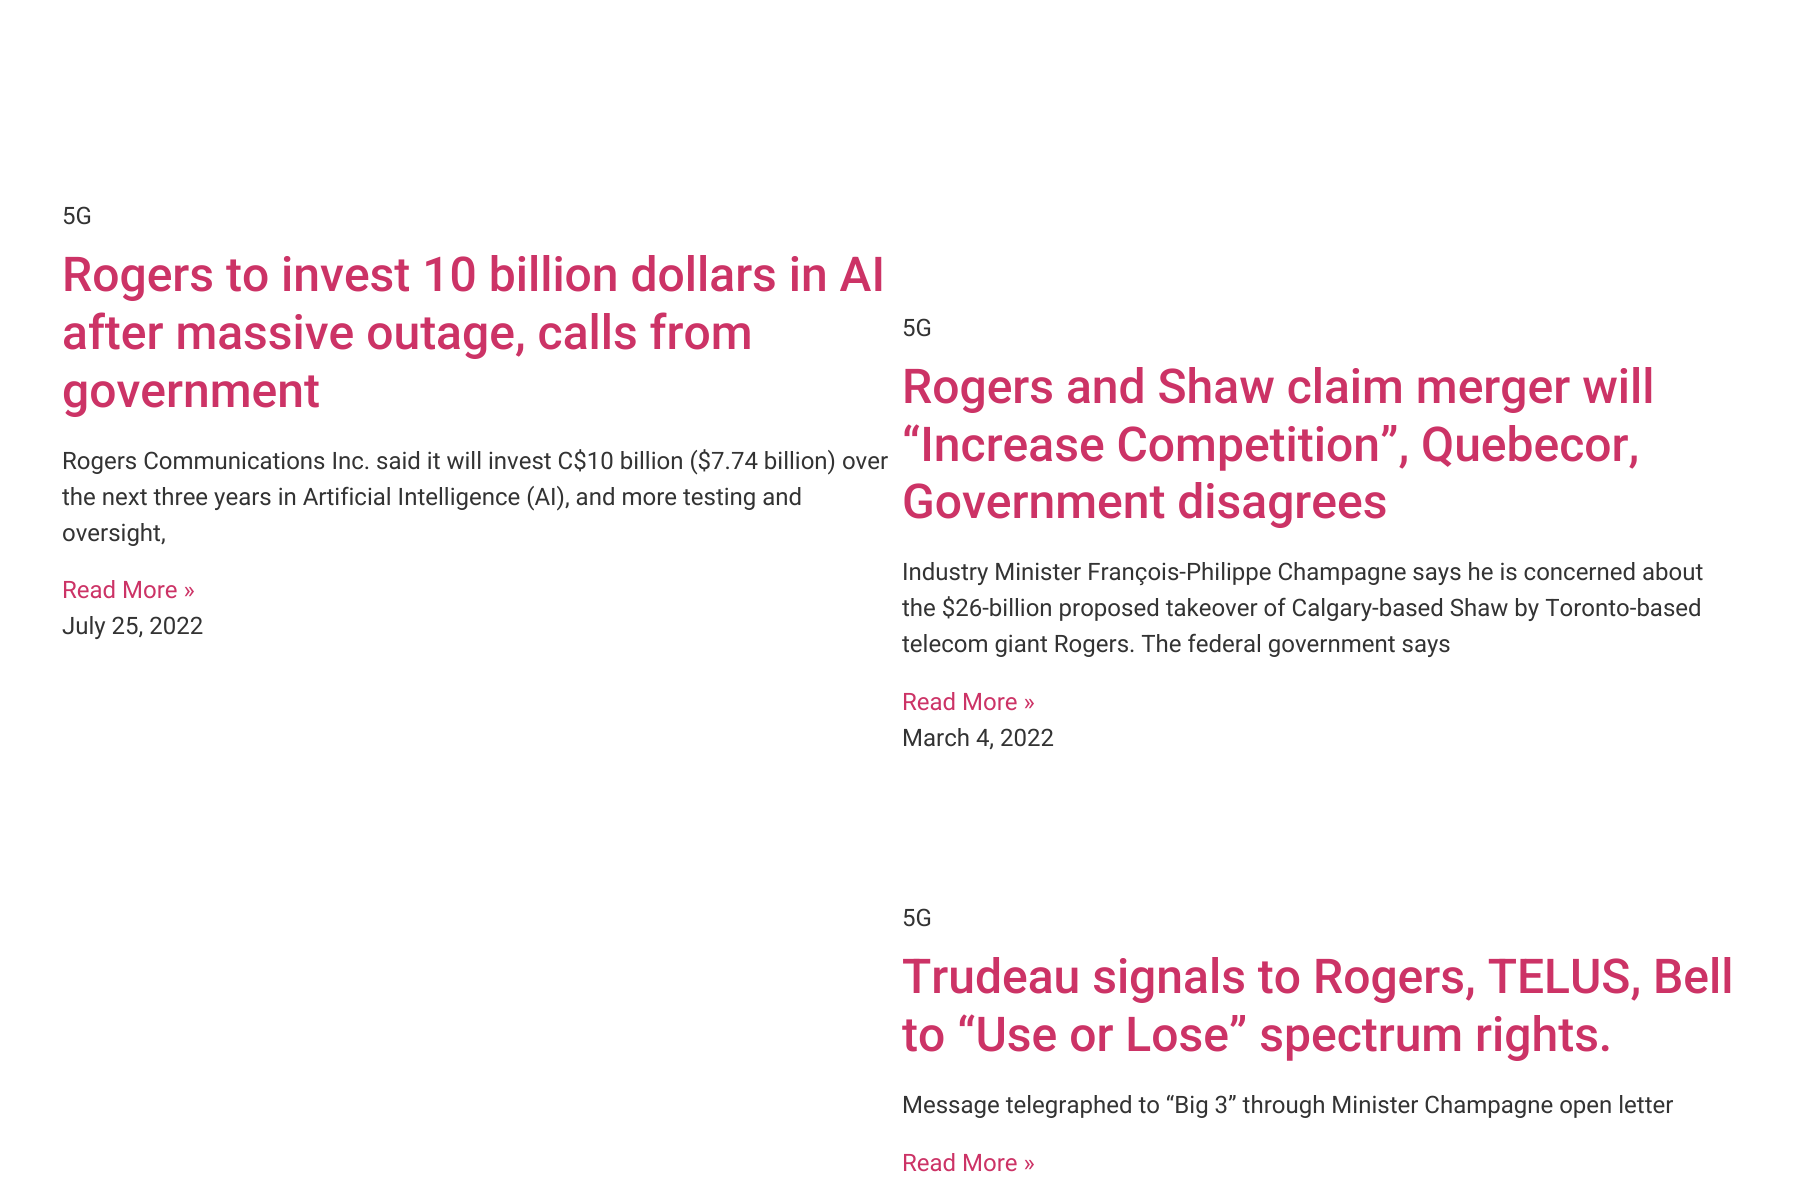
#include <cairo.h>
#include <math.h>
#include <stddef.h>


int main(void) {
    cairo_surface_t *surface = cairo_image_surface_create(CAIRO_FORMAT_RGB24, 1804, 1190);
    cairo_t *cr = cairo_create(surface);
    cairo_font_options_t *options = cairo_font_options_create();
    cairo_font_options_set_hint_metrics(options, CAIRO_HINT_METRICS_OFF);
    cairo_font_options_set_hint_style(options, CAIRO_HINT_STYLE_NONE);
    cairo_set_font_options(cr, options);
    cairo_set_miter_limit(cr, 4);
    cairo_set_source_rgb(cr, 1, 1, 1);
    cairo_paint(cr);
    cairo_select_font_face(cr, "Roboto", CAIRO_FONT_SLANT_NORMAL, CAIRO_FONT_WEIGHT_NORMAL);
    cairo_set_font_size(cr, 24);
    cairo_set_source_rgb(cr, 0.2, 0.2, 0.2);
    cairo_move_to(cr, 62, 224);
    cairo_show_text(cr, "5G");
    cairo_select_font_face(cr, "Roboto Medium", CAIRO_FONT_SLANT_NORMAL, CAIRO_FONT_WEIGHT_NORMAL);
    cairo_set_font_size(cr, 48);
    cairo_set_source_rgb(cr, 0.8, 0.2, 0.4);
    cairo_move_to(cr, 62, 291);
    cairo_show_text(cr, "Rogers to invest 10 billion dollars in AI");
    cairo_move_to(cr, 62, 349);
    cairo_show_text(cr, "after massive outage, calls from");
    cairo_move_to(cr, 62, 407);
    cairo_show_text(cr, "government");
    cairo_select_font_face(cr, "Roboto", CAIRO_FONT_SLANT_NORMAL, CAIRO_FONT_WEIGHT_NORMAL);
    cairo_set_font_size(cr, 24);
    cairo_set_source_rgb(cr, 0.2, 0.2, 0.2);
    cairo_move_to(cr, 62, 469);
    cairo_show_text(cr, "Rogers Communications Inc. said it will invest C$10 billion ($7.74 billion) over");
    cairo_move_to(cr, 62, 505);
    cairo_show_text(cr, "the next three years in Artificial Intelligence (AI), and more testing and");
    cairo_move_to(cr, 62, 541);
    cairo_show_text(cr, "oversight,");
    cairo_set_source_rgb(cr, 0.8, 0.2, 0.4);
    cairo_move_to(cr, 62, 598);
    cairo_show_text(cr, "Read More »");
    cairo_set_source_rgb(cr, 0.2, 0.2, 0.2);
    cairo_move_to(cr, 62, 634);
    cairo_show_text(cr, "July 25, 2022");
    cairo_move_to(cr, 902, 336);
    cairo_show_text(cr, "5G");
    cairo_select_font_face(cr, "Roboto Medium", CAIRO_FONT_SLANT_NORMAL, CAIRO_FONT_WEIGHT_NORMAL);
    cairo_set_font_size(cr, 48);
    cairo_set_source_rgb(cr, 0.8, 0.2, 0.4);
    cairo_move_to(cr, 902, 403);
    cairo_show_text(cr, "Rogers and Shaw claim merger will");
    cairo_move_to(cr, 902, 461);
    cairo_show_text(cr, "“Increase Competition”, Quebecor,");
    cairo_move_to(cr, 902, 518);
    cairo_show_text(cr, "Government disagrees");
    cairo_select_font_face(cr, "Roboto", CAIRO_FONT_SLANT_NORMAL, CAIRO_FONT_WEIGHT_NORMAL);
    cairo_set_font_size(cr, 24);
    cairo_set_source_rgb(cr, 0.2, 0.2, 0.2);
    cairo_move_to(cr, 902, 580);
    cairo_show_text(cr, "Industry Minister François-Philippe Champagne says he is concerned about");
    cairo_move_to(cr, 902, 616);
    cairo_show_text(cr, "the $26-billion proposed takeover of Calgary-based Shaw by Toronto-based");
    cairo_move_to(cr, 902, 652);
    cairo_show_text(cr, "telecom giant Rogers. The federal government says");
    cairo_set_source_rgb(cr, 0.8, 0.2, 0.4);
    cairo_move_to(cr, 902, 710);
    cairo_show_text(cr, "Read More »");
    cairo_set_source_rgb(cr, 0.2, 0.2, 0.2);
    cairo_move_to(cr, 902, 746);
    cairo_show_text(cr, "March 4, 2022");
    cairo_move_to(cr, 902, 926);
    cairo_show_text(cr, "5G");
    cairo_select_font_face(cr, "Roboto Medium", CAIRO_FONT_SLANT_NORMAL, CAIRO_FONT_WEIGHT_NORMAL);
    cairo_set_font_size(cr, 48);
    cairo_set_source_rgb(cr, 0.8, 0.2, 0.4);
    cairo_move_to(cr, 902, 993);
    cairo_show_text(cr, "Trudeau signals to Rogers, TELUS, Bell");
    cairo_move_to(cr, 902, 1051);
    cairo_show_text(cr, "to “Use or Lose” spectrum rights.");
    cairo_select_font_face(cr, "Roboto", CAIRO_FONT_SLANT_NORMAL, CAIRO_FONT_WEIGHT_NORMAL);
    cairo_set_font_size(cr, 24);
    cairo_set_source_rgb(cr, 0.2, 0.2, 0.2);
    cairo_move_to(cr, 902, 1113);
    cairo_show_text(cr, "Message telegraphed to “Big 3” through Minister Champagne open letter");
    cairo_set_source_rgb(cr, 0.8, 0.2, 0.4);
    cairo_move_to(cr, 902, 1171);
    cairo_show_text(cr, "Read More »");
    cairo_surface_write_to_png(surface, "page.png");
    cairo_font_options_destroy(options);
    cairo_destroy(cr);
    cairo_surface_destroy(surface);
    return 0;
}
